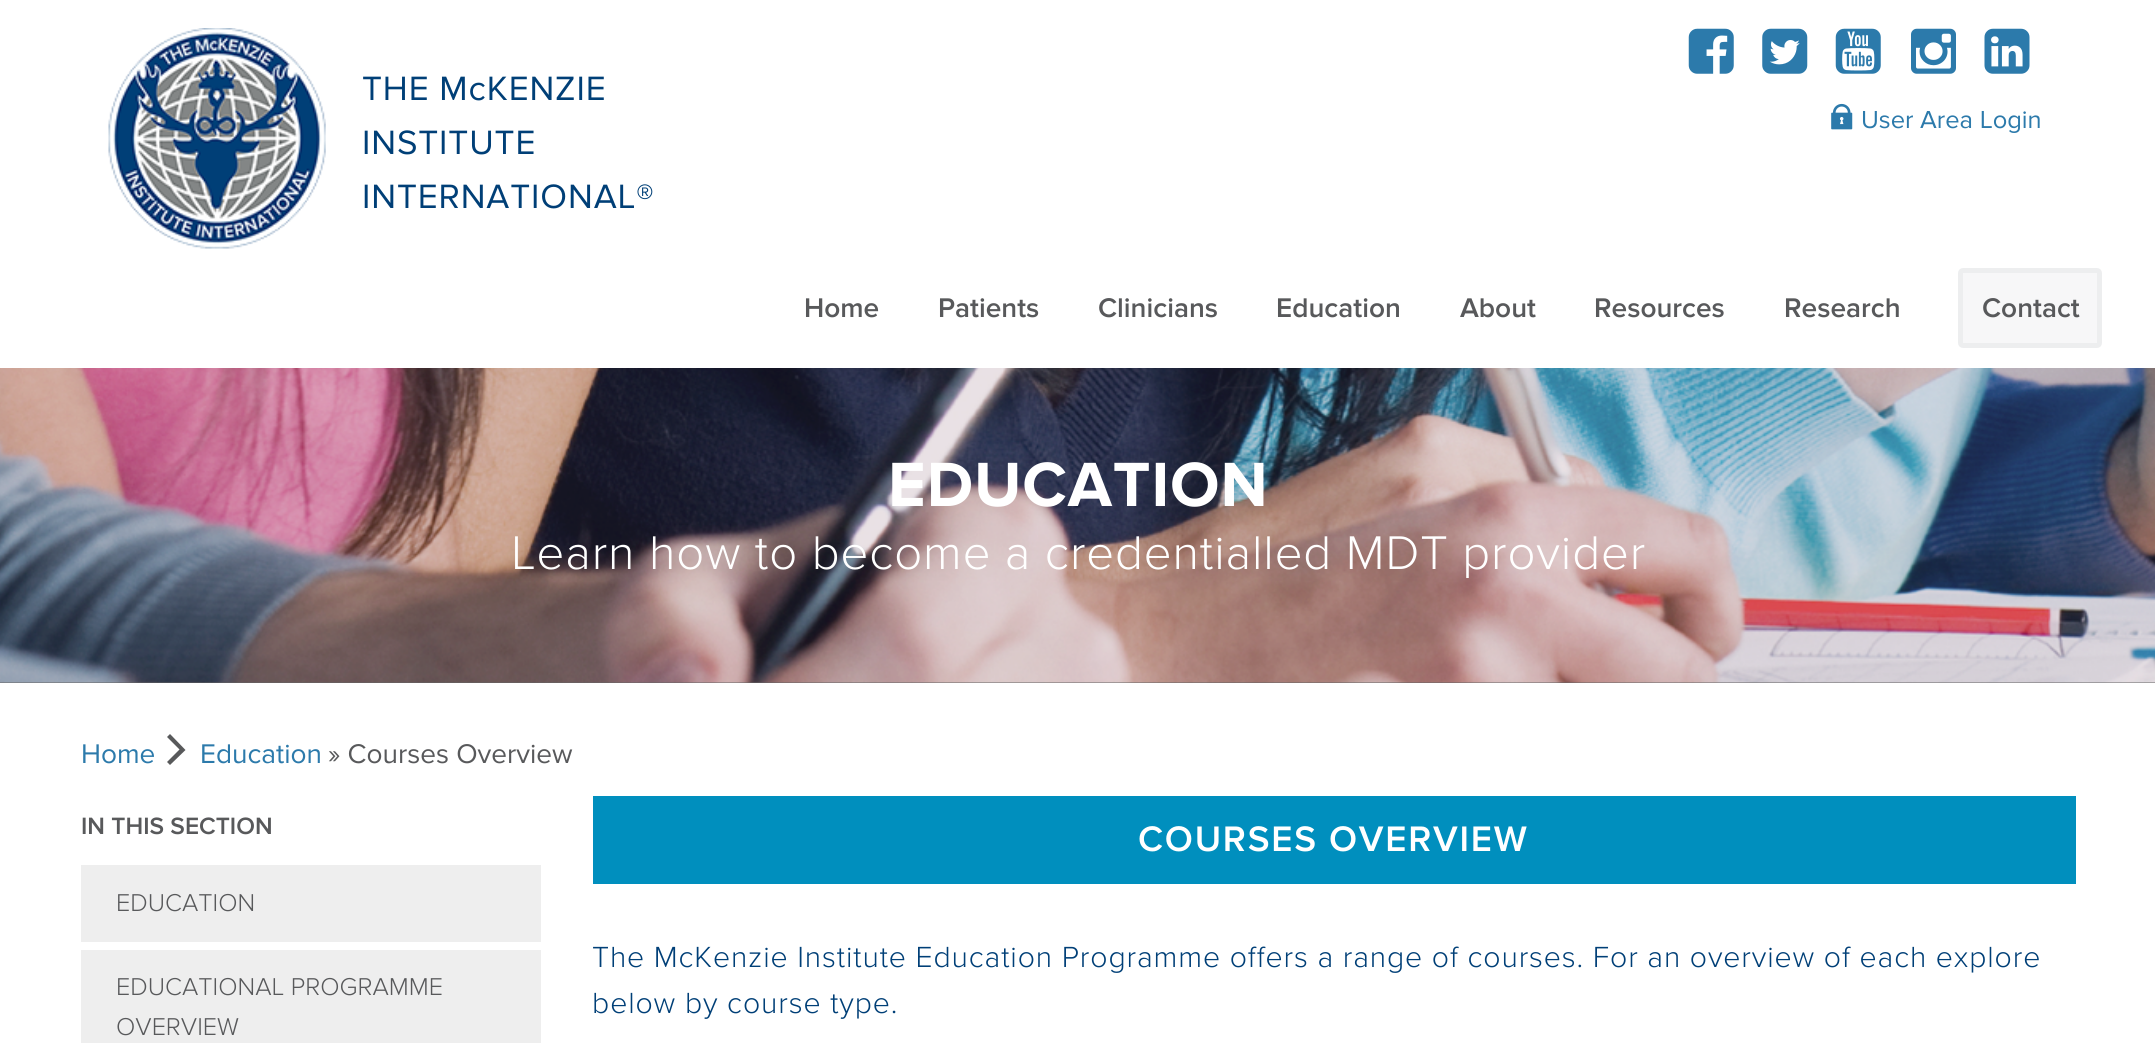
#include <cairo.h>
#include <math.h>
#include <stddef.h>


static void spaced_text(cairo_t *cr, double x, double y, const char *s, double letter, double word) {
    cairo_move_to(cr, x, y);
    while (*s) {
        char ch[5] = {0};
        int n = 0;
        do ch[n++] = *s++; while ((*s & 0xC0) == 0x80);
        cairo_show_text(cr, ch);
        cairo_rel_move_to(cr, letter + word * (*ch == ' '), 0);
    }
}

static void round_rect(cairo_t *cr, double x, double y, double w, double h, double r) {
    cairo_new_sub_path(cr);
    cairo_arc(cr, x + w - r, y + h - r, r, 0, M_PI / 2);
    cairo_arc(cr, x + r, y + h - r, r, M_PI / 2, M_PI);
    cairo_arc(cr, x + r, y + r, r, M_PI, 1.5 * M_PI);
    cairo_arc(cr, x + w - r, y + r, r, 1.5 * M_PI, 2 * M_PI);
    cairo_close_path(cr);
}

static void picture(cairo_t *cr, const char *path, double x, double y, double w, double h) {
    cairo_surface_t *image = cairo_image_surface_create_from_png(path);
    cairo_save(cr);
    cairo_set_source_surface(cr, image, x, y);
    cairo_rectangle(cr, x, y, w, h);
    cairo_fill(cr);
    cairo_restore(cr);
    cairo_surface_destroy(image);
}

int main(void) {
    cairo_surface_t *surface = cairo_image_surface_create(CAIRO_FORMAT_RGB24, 2155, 1043);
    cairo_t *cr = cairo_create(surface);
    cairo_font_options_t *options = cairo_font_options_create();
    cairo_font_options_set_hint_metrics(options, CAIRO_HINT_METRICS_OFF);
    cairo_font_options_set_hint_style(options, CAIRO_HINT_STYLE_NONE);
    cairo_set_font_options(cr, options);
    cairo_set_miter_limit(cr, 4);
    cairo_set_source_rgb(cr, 0.4, 0.4, 0.4);
    cairo_paint(cr);
    cairo_set_source_rgb(cr, 1, 1, 1);
    cairo_rectangle(cr, 0, 0, 2155, 368);
    cairo_fill(cr);
    picture(cr, "img1.png", 108, 28, 218, 221);
    cairo_select_font_face(cr, "Proxima Nova", CAIRO_FONT_SLANT_NORMAL, CAIRO_FONT_WEIGHT_NORMAL);
    cairo_set_font_size(cr, 35);
    cairo_set_source_rgb(cr, 0, 0.247, 0.467);
    spaced_text(cr, 362, 100, "THE McKENZIE", 0.88, 0);
    spaced_text(cr, 362, 154, "INSTITUTE", 0.88, 0);
    spaced_text(cr, 362, 208, "INTERNATIONAL®", 0.88, 0);
    picture(cr, "img2.png", 1688, 28, 46, 46);
    picture(cr, "img3.png", 1762, 28, 46, 46);
    picture(cr, "img4.png", 1835, 28, 46, 46);
    picture(cr, "img5.png", 1911, 28, 45, 46);
    picture(cr, "img6.png", 1984, 28, 46, 46);
    picture(cr, "img7.png", 1831, 103, 22, 27);
    cairo_set_font_size(cr, 25.5);
    cairo_set_source_rgb(cr, 0.173, 0.478, 0.671);
    cairo_move_to(cr, 1861, 128);
    cairo_show_text(cr, "User Area Login");
    cairo_select_font_face(cr, "Proxima Nova SemiBold", CAIRO_FONT_SLANT_NORMAL, CAIRO_FONT_WEIGHT_NORMAL);
    cairo_set_font_size(cr, 28);
    cairo_set_source_rgb(cr, 0.345, 0.349, 0.357);
    cairo_move_to(cr, 804, 317);
    cairo_show_text(cr, "Home");
    cairo_move_to(cr, 938, 317);
    cairo_show_text(cr, "Patients");
    cairo_move_to(cr, 1098, 317);
    cairo_show_text(cr, "Clinicians");
    cairo_move_to(cr, 1276, 317);
    cairo_show_text(cr, "Education");
    cairo_move_to(cr, 1460, 317);
    cairo_show_text(cr, "About");
    cairo_move_to(cr, 1594, 317);
    cairo_show_text(cr, "Resources");
    cairo_move_to(cr, 1784, 317);
    cairo_show_text(cr, "Research");
    cairo_set_source_rgb(cr, 0.965, 0.965, 0.969);
    round_rect(cr, 1960.5, 270.5, 139, 75, 2.5);
    cairo_fill_preserve(cr);
    cairo_set_source_rgb(cr, 0.929, 0.933, 0.937);
    cairo_set_line_width(cr, 5);
    cairo_stroke(cr);
    cairo_set_source_rgb(cr, 0.345, 0.349, 0.357);
    cairo_move_to(cr, 1982, 317);
    cairo_show_text(cr, "Contact");
    picture(cr, "img8.png", 0, 368, 2155, 315);
    cairo_select_font_face(cr, "Proxima Nova", CAIRO_FONT_SLANT_NORMAL, CAIRO_FONT_WEIGHT_BOLD);
    cairo_set_font_size(cr, 64.75);
    cairo_set_source_rgb(cr, 1, 1, 1);
    spaced_text(cr, 888, 506, "EDUCATION", 0.88, 0);
    cairo_select_font_face(cr, "Proxima Nova Light", CAIRO_FONT_SLANT_NORMAL, CAIRO_FONT_WEIGHT_NORMAL);
    cairo_set_font_size(cr, 49);
    spaced_text(cr, 511, 569, "Learn how to become a credentialled MDT provider", 0.88, 0);
    cairo_rectangle(cr, 0, 683, 2155, 360);
    cairo_fill(cr);
    cairo_select_font_face(cr, "Proxima Nova", CAIRO_FONT_SLANT_NORMAL, CAIRO_FONT_WEIGHT_NORMAL);
    cairo_set_font_size(cr, 28);
    cairo_set_source_rgb(cr, 0.173, 0.478, 0.671);
    cairo_move_to(cr, 81, 763);
    cairo_show_text(cr, "Home");
    cairo_set_source_rgb(cr, 0.345, 0.349, 0.357);
    cairo_new_path(cr);
    cairo_move_to(cr, 170, 765);
    cairo_line_to(cr, 167, 762);
    cairo_line_to(cr, 179.5, 749.5);
    cairo_line_to(cr, 167, 737);
    cairo_line_to(cr, 170, 734);
    cairo_line_to(cr, 185.5, 750);
    cairo_close_path(cr);
    cairo_fill(cr);
    cairo_set_source_rgb(cr, 0.173, 0.478, 0.671);
    cairo_move_to(cr, 200, 763);
    cairo_show_text(cr, "Education");
    cairo_set_source_rgb(cr, 0.345, 0.349, 0.357);
    cairo_move_to(cr, 328, 763);
    cairo_show_text(cr, "» Courses Overview");
    cairo_select_font_face(cr, "Proxima Nova SemiBold", CAIRO_FONT_SLANT_NORMAL, CAIRO_FONT_WEIGHT_NORMAL);
    cairo_set_font_size(cr, 24.5);
    cairo_move_to(cr, 81, 834);
    cairo_show_text(cr, "IN THIS SECTION");
    cairo_set_source_rgb(cr, 0.933, 0.933, 0.933);
    cairo_rectangle(cr, 81, 865, 460, 77);
    cairo_fill(cr);
    cairo_select_font_face(cr, "Proxima Nova Light", CAIRO_FONT_SLANT_NORMAL, CAIRO_FONT_WEIGHT_NORMAL);
    cairo_set_font_size(cr, 25.25);
    cairo_set_source_rgb(cr, 0.345, 0.349, 0.357);
    cairo_move_to(cr, 116, 911);
    cairo_show_text(cr, "EDUCATION");
    cairo_set_source_rgb(cr, 0.933, 0.933, 0.933);
    cairo_rectangle(cr, 81, 950, 460, 93);
    cairo_fill(cr);
    cairo_set_source_rgb(cr, 0.345, 0.349, 0.357);
    cairo_move_to(cr, 116, 995);
    cairo_show_text(cr, "EDUCATIONAL PROGRAMME");
    cairo_move_to(cr, 116, 1035);
    cairo_show_text(cr, "OVERVIEW");
    cairo_set_source_rgb(cr, 0, 0.561, 0.745);
    cairo_rectangle(cr, 593, 796, 1483, 88);
    cairo_fill(cr);
    cairo_select_font_face(cr, "Proxima Nova SemiBold", CAIRO_FONT_SLANT_NORMAL, CAIRO_FONT_WEIGHT_NORMAL);
    cairo_set_font_size(cr, 36.75);
    cairo_set_source_rgb(cr, 1, 1, 1);
    spaced_text(cr, 1138, 851, "COURSES OVERVIEW", 1.75, 0);
    cairo_select_font_face(cr, "Proxima Nova Light", CAIRO_FONT_SLANT_NORMAL, CAIRO_FONT_WEIGHT_NORMAL);
    cairo_set_font_size(cr, 30.2);
    cairo_set_source_rgb(cr, 0, 0.247, 0.467);
    spaced_text(cr, 592, 967, "The McKenzie Institute Education Programme offers a range of courses. For an overview of each explore", 0.88, 0);
    spaced_text(cr, 592, 1013, "below by course type.", 0.88, 0);
    cairo_surface_write_to_png(surface, "page.png");
    cairo_font_options_destroy(options);
    cairo_destroy(cr);
    cairo_surface_destroy(surface);
    return 0;
}
